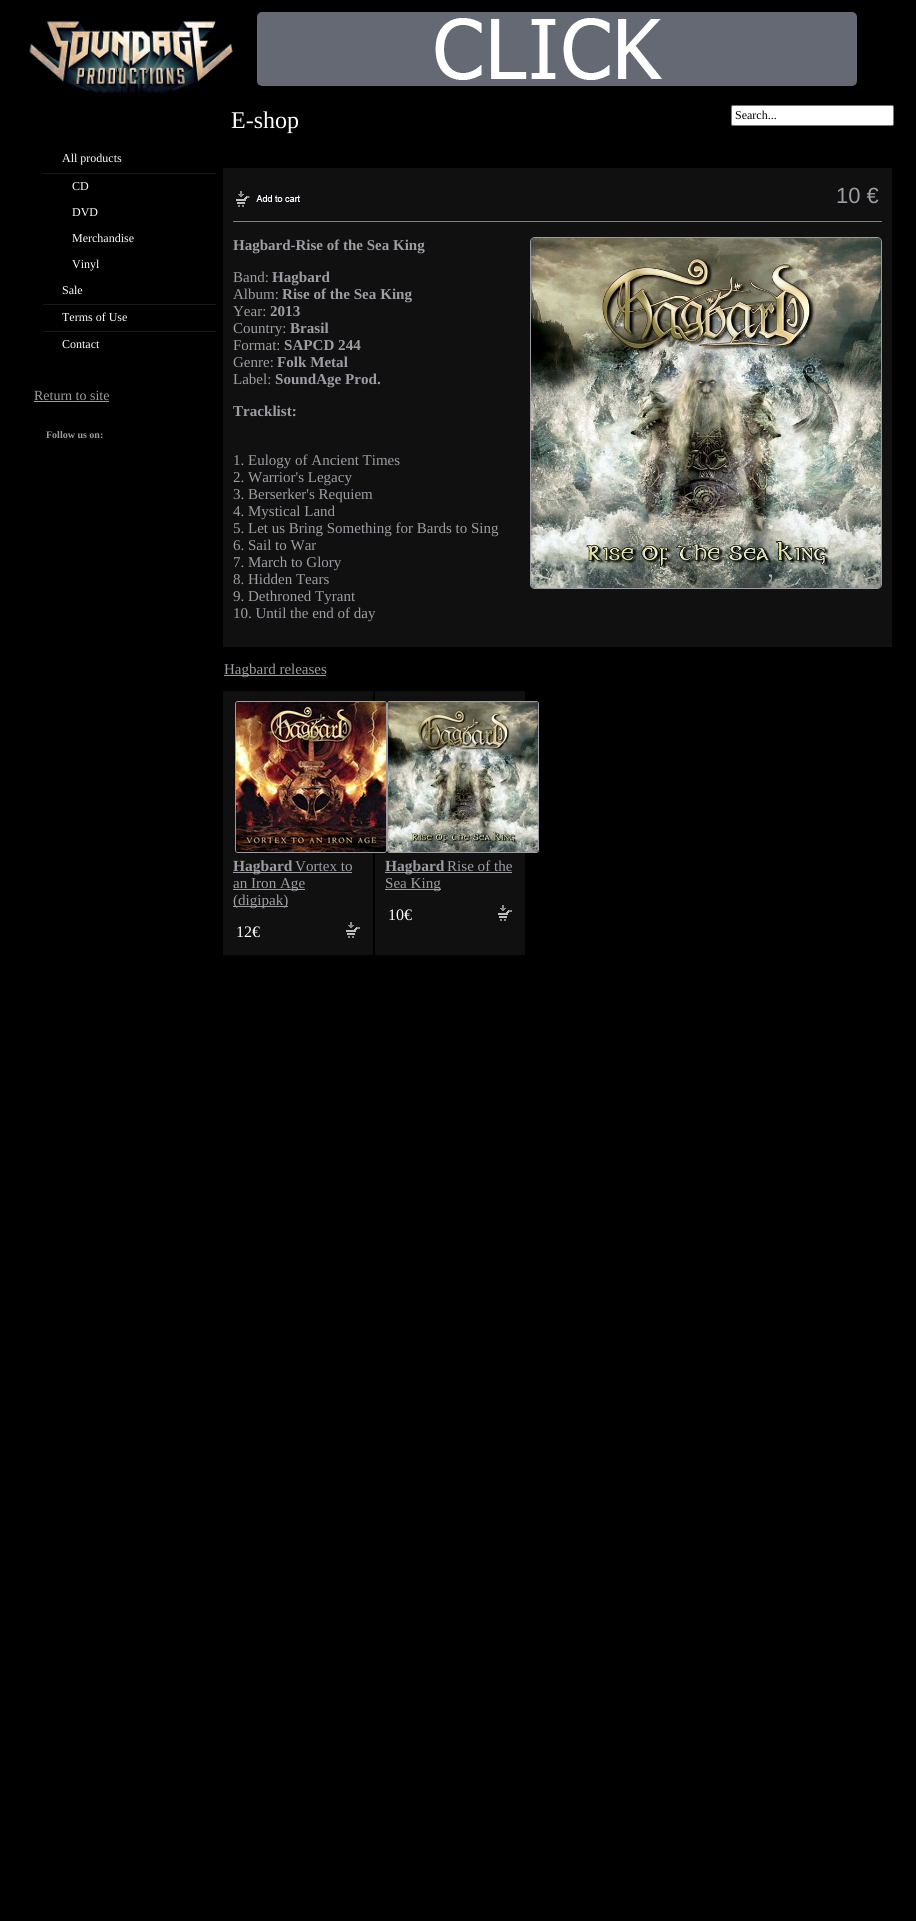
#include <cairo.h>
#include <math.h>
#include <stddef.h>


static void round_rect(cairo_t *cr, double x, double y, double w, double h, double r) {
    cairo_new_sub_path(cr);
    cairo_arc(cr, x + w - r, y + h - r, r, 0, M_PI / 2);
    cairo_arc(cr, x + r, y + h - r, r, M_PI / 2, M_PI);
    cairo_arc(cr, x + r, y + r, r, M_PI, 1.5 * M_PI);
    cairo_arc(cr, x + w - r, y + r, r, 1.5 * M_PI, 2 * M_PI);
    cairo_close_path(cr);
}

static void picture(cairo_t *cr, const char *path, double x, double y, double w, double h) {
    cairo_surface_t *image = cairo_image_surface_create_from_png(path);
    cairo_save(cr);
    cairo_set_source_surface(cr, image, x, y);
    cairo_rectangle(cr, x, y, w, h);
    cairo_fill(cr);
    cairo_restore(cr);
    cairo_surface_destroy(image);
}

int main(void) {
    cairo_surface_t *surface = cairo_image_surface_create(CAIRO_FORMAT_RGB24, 916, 1921);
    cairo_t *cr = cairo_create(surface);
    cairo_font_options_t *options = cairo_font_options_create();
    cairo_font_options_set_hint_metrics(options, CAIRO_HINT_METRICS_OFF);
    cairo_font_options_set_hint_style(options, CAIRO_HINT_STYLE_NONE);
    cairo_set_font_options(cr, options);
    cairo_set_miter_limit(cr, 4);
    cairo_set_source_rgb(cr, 0, 0, 0);
    cairo_paint(cr);
    picture(cr, "img1.png", 29, 21, 204, 73);
    cairo_set_source_rgb(cr, 0.094, 0.094, 0.094);
    cairo_rectangle(cr, 43, 173, 173, 1);
    cairo_fill(cr);
    cairo_select_font_face(cr, "Liberation Serif", CAIRO_FONT_SLANT_NORMAL, CAIRO_FONT_WEIGHT_NORMAL);
    cairo_set_font_size(cr, 12);
    cairo_set_source_rgb(cr, 1, 1, 1);
    cairo_move_to(cr, 62, 162);
    cairo_show_text(cr, "All products");
    cairo_move_to(cr, 72, 190);
    cairo_show_text(cr, "CD");
    cairo_move_to(cr, 72, 216);
    cairo_show_text(cr, "DVD");
    cairo_move_to(cr, 72, 242);
    cairo_show_text(cr, "Merchandise");
    cairo_move_to(cr, 72, 268);
    cairo_show_text(cr, "Vinyl");
    cairo_set_source_rgb(cr, 0.094, 0.094, 0.094);
    cairo_rectangle(cr, 43, 304, 173, 1);
    cairo_fill(cr);
    cairo_set_source_rgb(cr, 1, 1, 1);
    cairo_move_to(cr, 62, 294);
    cairo_show_text(cr, "Sale");
    cairo_set_source_rgb(cr, 0.094, 0.094, 0.094);
    cairo_rectangle(cr, 43, 331, 173, 1);
    cairo_fill(cr);
    cairo_set_source_rgb(cr, 1, 1, 1);
    cairo_move_to(cr, 62, 321);
    cairo_show_text(cr, "Terms of Use");
    cairo_move_to(cr, 62, 348);
    cairo_show_text(cr, "Contact");
    cairo_set_font_size(cr, 14);
    cairo_set_source_rgb(cr, 0.616, 0.616, 0.639);
    cairo_move_to(cr, 34, 400);
    cairo_show_text(cr, "Return to site");
    cairo_rectangle(cr, 34, 401, 75, 1);
    cairo_fill(cr);
    cairo_select_font_face(cr, "Liberation Serif", CAIRO_FONT_SLANT_NORMAL, CAIRO_FONT_WEIGHT_BOLD);
    cairo_set_font_size(cr, 10);
    cairo_move_to(cr, 46, 438);
    cairo_show_text(cr, "Follow us on:");
    picture(cr, "img2.png", 257, 12, 600, 74);
    cairo_select_font_face(cr, "Liberation Serif", CAIRO_FONT_SLANT_NORMAL, CAIRO_FONT_WEIGHT_NORMAL);
    cairo_set_font_size(cr, 24);
    cairo_set_source_rgb(cr, 1, 1, 1);
    cairo_move_to(cr, 231, 128);
    cairo_show_text(cr, "E-shop");
    round_rect(cr, 731.5, 105.5, 162, 20, 1.5);
    cairo_fill_preserve(cr);
    cairo_set_source_rgb(cr, 0.463, 0.463, 0.463);
    cairo_set_line_width(cr, 1);
    cairo_stroke(cr);
    cairo_set_font_size(cr, 12);
    cairo_set_source_rgb(cr, 0, 0, 0);
    cairo_move_to(cr, 735, 119);
    cairo_show_text(cr, "Search...");
    cairo_set_source_rgb(cr, 0.063, 0.063, 0.067);
    cairo_rectangle(cr, 223, 168, 669, 479);
    cairo_fill(cr);
    picture(cr, "img3.png", 236, 191, 64, 16);
    cairo_select_font_face(cr, "Liberation Sans", CAIRO_FONT_SLANT_NORMAL, CAIRO_FONT_WEIGHT_NORMAL);
    cairo_set_font_size(cr, 22);
    cairo_set_source_rgb(cr, 0.616, 0.616, 0.639);
    cairo_move_to(cr, 836, 203);
    cairo_show_text(cr, "10 €");
    cairo_set_source_rgb(cr, 0.502, 0.502, 0.502);
    cairo_rectangle(cr, 233, 221, 649, 1);
    cairo_fill(cr);
    cairo_select_font_face(cr, "Liberation Serif", CAIRO_FONT_SLANT_NORMAL, CAIRO_FONT_WEIGHT_BOLD);
    cairo_set_font_size(cr, 15);
    cairo_set_source_rgb(cr, 0.616, 0.616, 0.639);
    cairo_move_to(cr, 233, 250);
    cairo_show_text(cr, "Hagbard-Rise of the Sea King");
    round_rect(cr, 530.5, 237.5, 351, 351, 4.5);
    cairo_stroke(cr);
    picture(cr, "img4.png", 531, 238, 350, 350);
    cairo_select_font_face(cr, "Liberation Serif", CAIRO_FONT_SLANT_NORMAL, CAIRO_FONT_WEIGHT_NORMAL);
    cairo_move_to(cr, 233, 282);
    cairo_show_text(cr, "Band:");
    cairo_select_font_face(cr, "Liberation Serif", CAIRO_FONT_SLANT_NORMAL, CAIRO_FONT_WEIGHT_BOLD);
    cairo_set_font_size(cr, 15.1);
    cairo_move_to(cr, 272, 282);
    cairo_show_text(cr, "Hagbard");
    cairo_select_font_face(cr, "Liberation Serif", CAIRO_FONT_SLANT_NORMAL, CAIRO_FONT_WEIGHT_NORMAL);
    cairo_set_font_size(cr, 15);
    cairo_move_to(cr, 233, 299);
    cairo_show_text(cr, "Album:");
    cairo_select_font_face(cr, "Liberation Serif", CAIRO_FONT_SLANT_NORMAL, CAIRO_FONT_WEIGHT_BOLD);
    cairo_set_font_size(cr, 15.1);
    cairo_move_to(cr, 282, 299);
    cairo_show_text(cr, "Rise of the Sea King");
    cairo_select_font_face(cr, "Liberation Serif", CAIRO_FONT_SLANT_NORMAL, CAIRO_FONT_WEIGHT_NORMAL);
    cairo_set_font_size(cr, 15);
    cairo_move_to(cr, 233, 316);
    cairo_show_text(cr, "Year:");
    cairo_select_font_face(cr, "Liberation Serif", CAIRO_FONT_SLANT_NORMAL, CAIRO_FONT_WEIGHT_BOLD);
    cairo_set_font_size(cr, 15.1);
    cairo_move_to(cr, 270, 316);
    cairo_show_text(cr, "2013");
    cairo_select_font_face(cr, "Liberation Serif", CAIRO_FONT_SLANT_NORMAL, CAIRO_FONT_WEIGHT_NORMAL);
    cairo_set_font_size(cr, 15);
    cairo_move_to(cr, 233, 333);
    cairo_show_text(cr, "Country:");
    cairo_select_font_face(cr, "Liberation Serif", CAIRO_FONT_SLANT_NORMAL, CAIRO_FONT_WEIGHT_BOLD);
    cairo_set_font_size(cr, 15.1);
    cairo_move_to(cr, 290, 333);
    cairo_show_text(cr, "Brasil");
    cairo_select_font_face(cr, "Liberation Serif", CAIRO_FONT_SLANT_NORMAL, CAIRO_FONT_WEIGHT_NORMAL);
    cairo_set_font_size(cr, 15);
    cairo_move_to(cr, 233, 350);
    cairo_show_text(cr, "Format:");
    cairo_select_font_face(cr, "Liberation Serif", CAIRO_FONT_SLANT_NORMAL, CAIRO_FONT_WEIGHT_BOLD);
    cairo_set_font_size(cr, 15.1);
    cairo_move_to(cr, 284, 350);
    cairo_show_text(cr, "SAPCD 244");
    cairo_select_font_face(cr, "Liberation Serif", CAIRO_FONT_SLANT_NORMAL, CAIRO_FONT_WEIGHT_NORMAL);
    cairo_set_font_size(cr, 15);
    cairo_move_to(cr, 233, 367);
    cairo_show_text(cr, "Genre:");
    cairo_select_font_face(cr, "Liberation Serif", CAIRO_FONT_SLANT_NORMAL, CAIRO_FONT_WEIGHT_BOLD);
    cairo_set_font_size(cr, 15.1);
    cairo_move_to(cr, 277, 367);
    cairo_show_text(cr, "Folk Metal");
    cairo_select_font_face(cr, "Liberation Serif", CAIRO_FONT_SLANT_NORMAL, CAIRO_FONT_WEIGHT_NORMAL);
    cairo_set_font_size(cr, 15);
    cairo_move_to(cr, 233, 384);
    cairo_show_text(cr, "Label:");
    cairo_select_font_face(cr, "Liberation Serif", CAIRO_FONT_SLANT_NORMAL, CAIRO_FONT_WEIGHT_BOLD);
    cairo_set_font_size(cr, 15.1);
    cairo_move_to(cr, 275, 384);
    cairo_show_text(cr, "SoundAge Prod.");
    cairo_move_to(cr, 233, 416);
    cairo_show_text(cr, "Tracklist:");
    cairo_select_font_face(cr, "Liberation Serif", CAIRO_FONT_SLANT_NORMAL, CAIRO_FONT_WEIGHT_NORMAL);
    cairo_set_font_size(cr, 15);
    cairo_move_to(cr, 233, 465);
    cairo_show_text(cr, "1. Eulogy of Ancient Times");
    cairo_move_to(cr, 233, 482);
    cairo_show_text(cr, "2. Warrior's Legacy");
    cairo_move_to(cr, 233, 499);
    cairo_show_text(cr, "3. Berserker's Requiem");
    cairo_move_to(cr, 233, 516);
    cairo_show_text(cr, "4. Mystical Land");
    cairo_move_to(cr, 233, 533);
    cairo_show_text(cr, "5. Let us Bring Something for Bards to Sing");
    cairo_move_to(cr, 233, 550);
    cairo_show_text(cr, "6. Sail to War");
    cairo_move_to(cr, 233, 567);
    cairo_show_text(cr, "7. March to Glory");
    cairo_move_to(cr, 233, 584);
    cairo_show_text(cr, "8. Hidden Tears");
    cairo_move_to(cr, 233, 601);
    cairo_show_text(cr, "9. Dethroned Tyrant");
    cairo_move_to(cr, 233, 618);
    cairo_show_text(cr, "10. Until the end of day");
    cairo_rectangle(cr, 224, 675, 102, 1);
    cairo_fill(cr);
    cairo_move_to(cr, 224, 674);
    cairo_show_text(cr, "Hagbard releases");
    cairo_set_source_rgb(cr, 0.063, 0.063, 0.067);
    cairo_rectangle(cr, 223, 691, 150, 264);
    cairo_fill(cr);
    cairo_rectangle(cr, 375, 691, 150, 264);
    cairo_fill(cr);
    round_rect(cr, 235.5, 701.5, 151, 151, 2.5);
    cairo_set_source_rgb(cr, 0.616, 0.616, 0.639);
    cairo_stroke(cr);
    picture(cr, "img5.png", 236, 702, 150, 150);
    cairo_rectangle(cr, 233, 872, 58, 1);
    cairo_fill(cr);
    cairo_select_font_face(cr, "Liberation Serif", CAIRO_FONT_SLANT_NORMAL, CAIRO_FONT_WEIGHT_BOLD);
    cairo_set_font_size(cr, 15.5);
    cairo_move_to(cr, 233, 871);
    cairo_show_text(cr, "Hagbard");
    cairo_rectangle(cr, 291, 872, 61, 1);
    cairo_fill(cr);
    cairo_select_font_face(cr, "Liberation Serif", CAIRO_FONT_SLANT_NORMAL, CAIRO_FONT_WEIGHT_NORMAL);
    cairo_set_font_size(cr, 15.1);
    cairo_move_to(cr, 295, 871);
    cairo_show_text(cr, "Vortex to");
    cairo_rectangle(cr, 233, 889, 72, 1);
    cairo_fill(cr);
    cairo_move_to(cr, 233, 888);
    cairo_show_text(cr, "an Iron Age");
    cairo_rectangle(cr, 233, 906, 55, 1);
    cairo_fill(cr);
    cairo_move_to(cr, 233, 905);
    cairo_show_text(cr, "(digipak)");
    cairo_set_font_size(cr, 16);
    cairo_set_source_rgb(cr, 1, 1, 1);
    cairo_move_to(cr, 236, 937);
    cairo_show_text(cr, "12€");
    picture(cr, "img6.png", 346, 922, 14, 16);
    round_rect(cr, 387.5, 701.5, 151, 151, 2.5);
    cairo_set_source_rgb(cr, 0.616, 0.616, 0.639);
    cairo_stroke(cr);
    picture(cr, "img7.png", 388, 702, 150, 150);
    cairo_rectangle(cr, 385, 872, 58, 1);
    cairo_fill(cr);
    cairo_select_font_face(cr, "Liberation Serif", CAIRO_FONT_SLANT_NORMAL, CAIRO_FONT_WEIGHT_BOLD);
    cairo_set_font_size(cr, 15.5);
    cairo_move_to(cr, 385, 871);
    cairo_show_text(cr, "Hagbard");
    cairo_rectangle(cr, 443, 872, 69, 1);
    cairo_fill(cr);
    cairo_select_font_face(cr, "Liberation Serif", CAIRO_FONT_SLANT_NORMAL, CAIRO_FONT_WEIGHT_NORMAL);
    cairo_set_font_size(cr, 15.1);
    cairo_move_to(cr, 447, 871);
    cairo_show_text(cr, "Rise of the");
    cairo_rectangle(cr, 385, 889, 56, 1);
    cairo_fill(cr);
    cairo_move_to(cr, 385, 888);
    cairo_show_text(cr, "Sea King");
    cairo_set_font_size(cr, 16);
    cairo_set_source_rgb(cr, 1, 1, 1);
    cairo_move_to(cr, 388, 920);
    cairo_show_text(cr, "10€");
    picture(cr, "img6.png", 498, 905, 14, 16);
    cairo_surface_write_to_png(surface, "page.png");
    cairo_font_options_destroy(options);
    cairo_destroy(cr);
    cairo_surface_destroy(surface);
    return 0;
}
